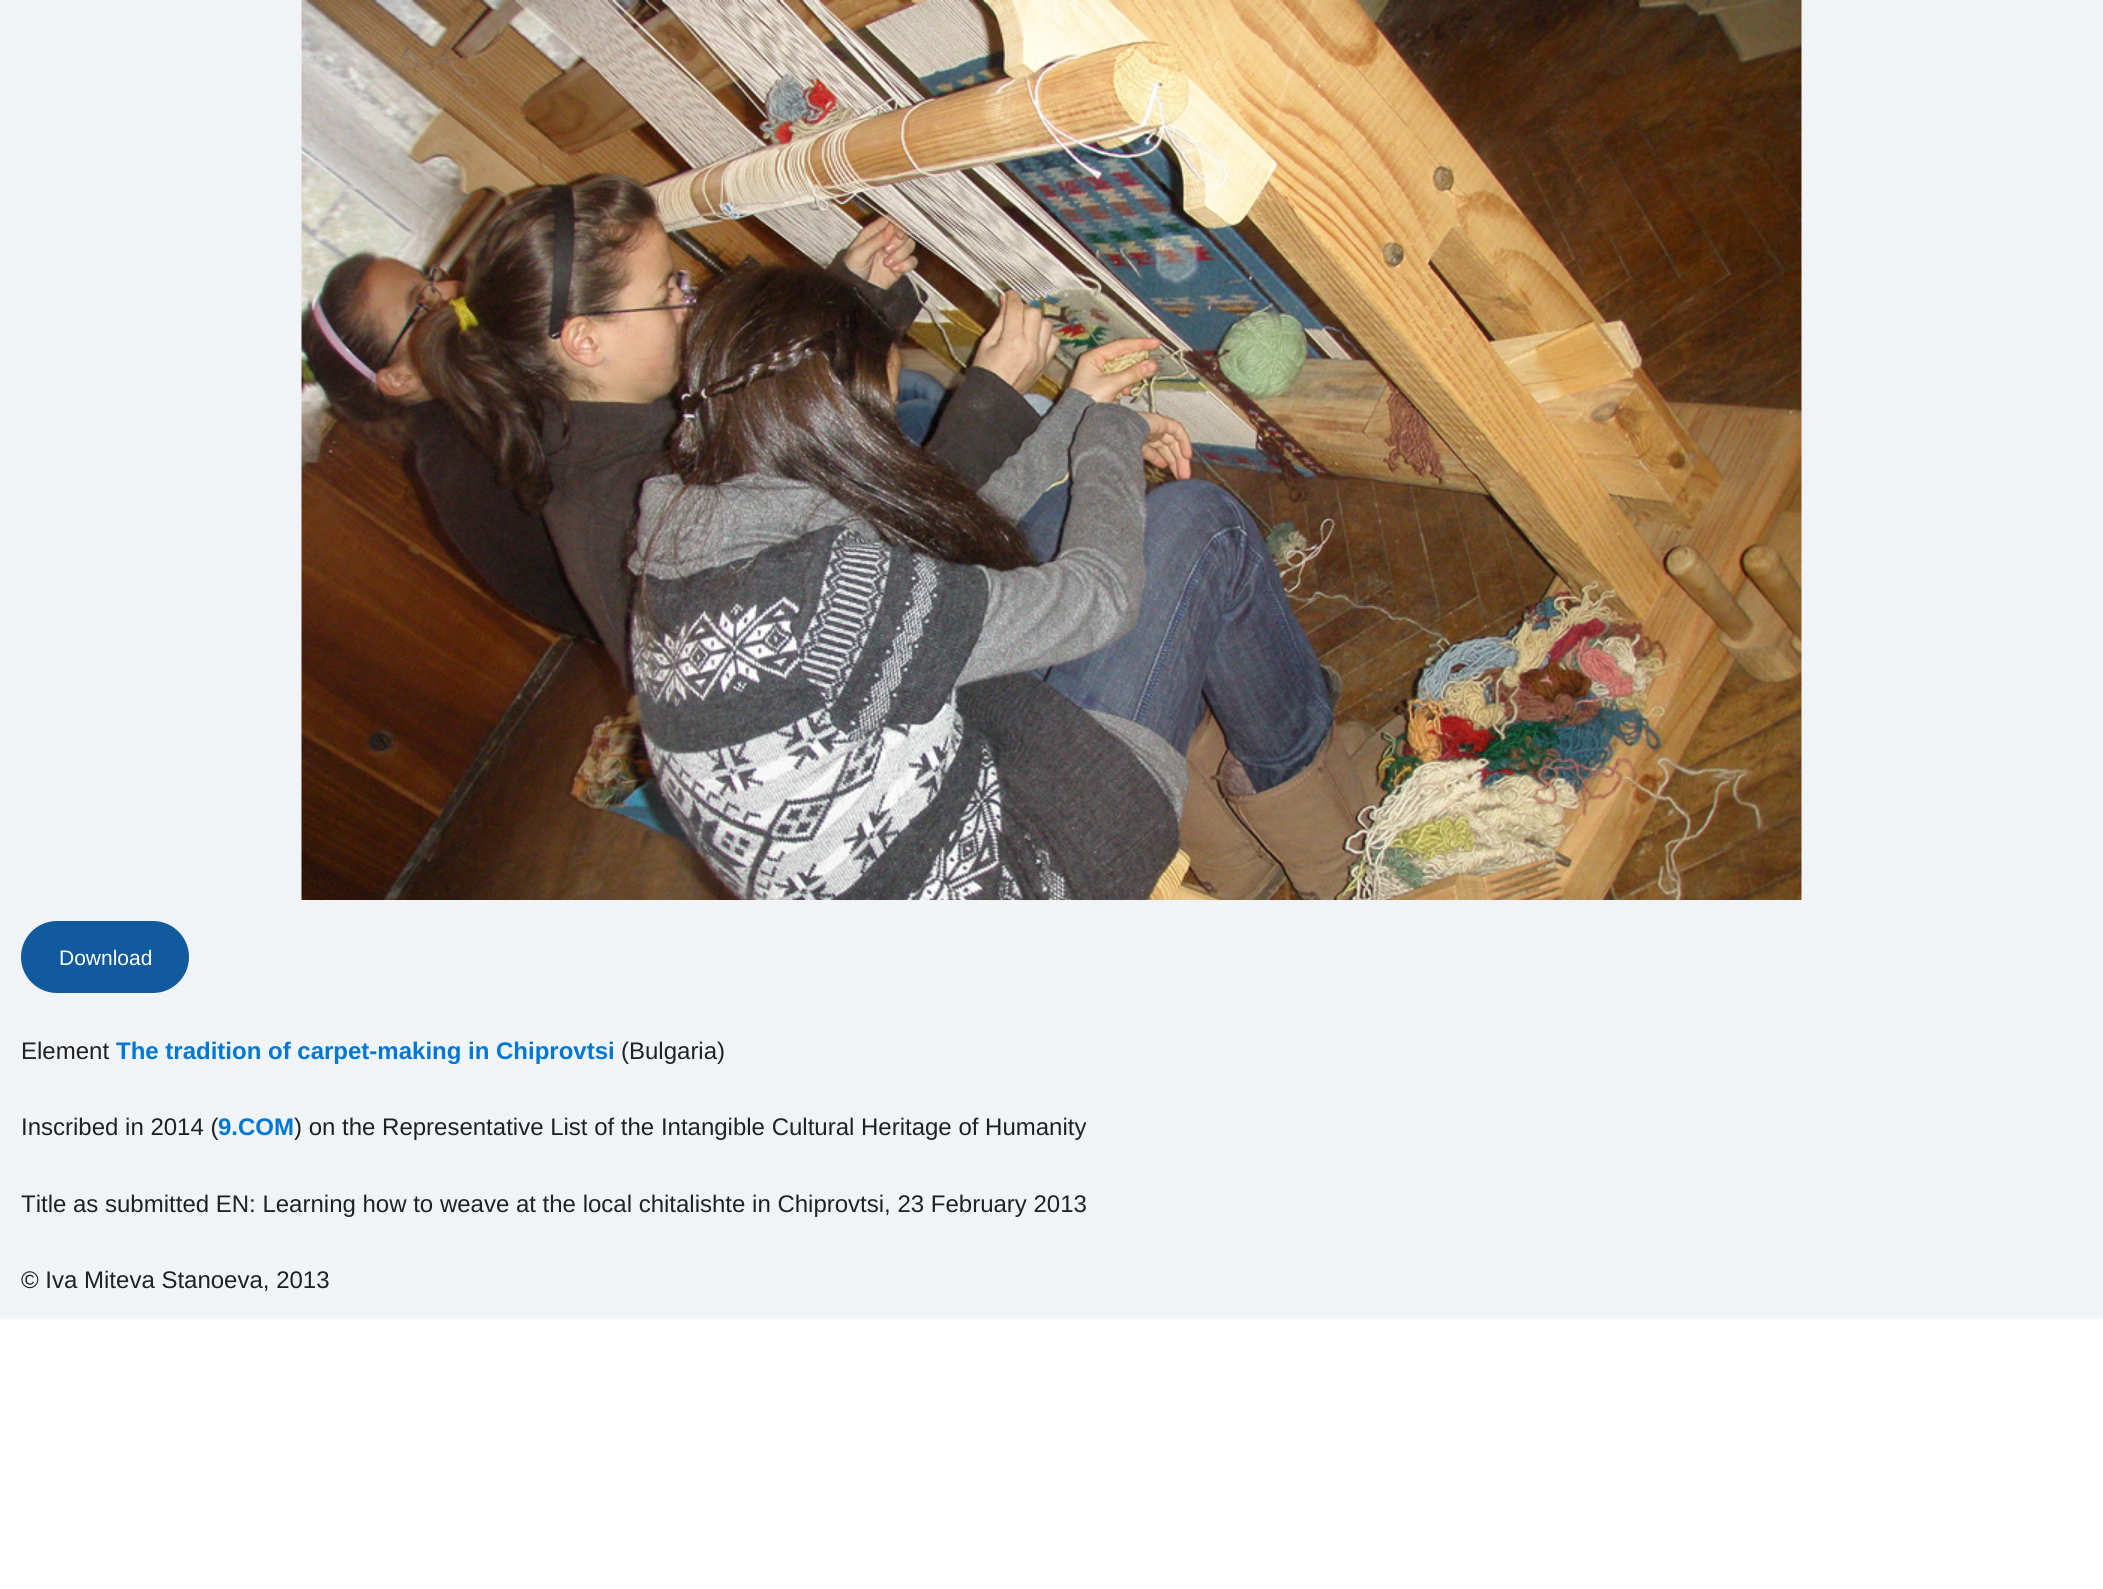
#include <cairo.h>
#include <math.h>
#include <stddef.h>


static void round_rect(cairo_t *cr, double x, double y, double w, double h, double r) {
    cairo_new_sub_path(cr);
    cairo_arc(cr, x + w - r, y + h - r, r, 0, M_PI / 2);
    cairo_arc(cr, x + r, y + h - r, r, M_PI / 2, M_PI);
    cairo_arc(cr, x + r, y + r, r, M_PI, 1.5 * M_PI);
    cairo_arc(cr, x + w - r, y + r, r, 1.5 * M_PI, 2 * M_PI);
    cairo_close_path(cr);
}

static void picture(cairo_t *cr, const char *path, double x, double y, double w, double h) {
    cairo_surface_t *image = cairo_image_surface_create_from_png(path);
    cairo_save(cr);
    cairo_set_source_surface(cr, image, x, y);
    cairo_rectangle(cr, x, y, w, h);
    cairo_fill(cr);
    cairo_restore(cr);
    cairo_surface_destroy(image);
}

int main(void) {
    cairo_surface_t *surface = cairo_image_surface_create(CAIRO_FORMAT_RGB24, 2103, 1589);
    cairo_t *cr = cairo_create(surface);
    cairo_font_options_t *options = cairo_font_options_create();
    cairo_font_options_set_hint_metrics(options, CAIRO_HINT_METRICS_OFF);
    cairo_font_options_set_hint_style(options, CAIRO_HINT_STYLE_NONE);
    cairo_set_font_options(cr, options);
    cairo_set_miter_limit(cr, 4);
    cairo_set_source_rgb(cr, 1, 1, 1);
    cairo_paint(cr);
    cairo_set_source_rgb(cr, 0.945, 0.957, 0.965);
    cairo_rectangle(cr, 0, 0, 2103, 1319);
    cairo_fill(cr);
    picture(cr, "img1.png", 301, 0, 1501, 900);
    cairo_set_source_rgb(cr, 0.067, 0.353, 0.62);
    round_rect(cr, 21, 921, 168, 72, 36);
    cairo_fill(cr);
    cairo_select_font_face(cr, "Liberation Sans", CAIRO_FONT_SLANT_NORMAL, CAIRO_FONT_WEIGHT_NORMAL);
    cairo_set_font_size(cr, 21);
    cairo_set_source_rgb(cr, 1, 1, 1);
    cairo_move_to(cr, 59, 965);
    cairo_show_text(cr, "Download");
    cairo_set_font_size(cr, 24);
    cairo_set_source_rgb(cr, 0.129, 0.129, 0.129);
    cairo_move_to(cr, 21, 1059);
    cairo_show_text(cr, "Element");
    cairo_select_font_face(cr, "Liberation Sans", CAIRO_FONT_SLANT_NORMAL, CAIRO_FONT_WEIGHT_BOLD);
    cairo_set_source_rgb(cr, 0, 0.467, 0.831);
    cairo_move_to(cr, 116, 1059);
    cairo_show_text(cr, "The tradition of carpet-making in Chiprovtsi");
    cairo_select_font_face(cr, "Liberation Sans", CAIRO_FONT_SLANT_NORMAL, CAIRO_FONT_WEIGHT_NORMAL);
    cairo_set_source_rgb(cr, 0.129, 0.129, 0.129);
    cairo_move_to(cr, 621, 1059);
    cairo_show_text(cr, "(Bulgaria)");
    cairo_move_to(cr, 21, 1135);
    cairo_show_text(cr, "Inscribed in 2014 (");
    cairo_select_font_face(cr, "Liberation Sans", CAIRO_FONT_SLANT_NORMAL, CAIRO_FONT_WEIGHT_BOLD);
    cairo_set_source_rgb(cr, 0, 0.467, 0.831);
    cairo_move_to(cr, 218, 1135);
    cairo_show_text(cr, "9.COM");
    cairo_select_font_face(cr, "Liberation Sans", CAIRO_FONT_SLANT_NORMAL, CAIRO_FONT_WEIGHT_NORMAL);
    cairo_set_source_rgb(cr, 0.129, 0.129, 0.129);
    cairo_move_to(cr, 294, 1135);
    cairo_show_text(cr, ") on the Representative List of the Intangible Cultural Heritage of Humanity");
    cairo_move_to(cr, 21, 1212);
    cairo_show_text(cr, "Title as submitted EN: Learning how to weave at the local chitalishte in Chiprovtsi, 23 February 2013");
    cairo_move_to(cr, 21, 1288);
    cairo_show_text(cr, "© Iva Miteva Stanoeva, 2013");
    cairo_surface_write_to_png(surface, "page.png");
    cairo_font_options_destroy(options);
    cairo_destroy(cr);
    cairo_surface_destroy(surface);
    return 0;
}
